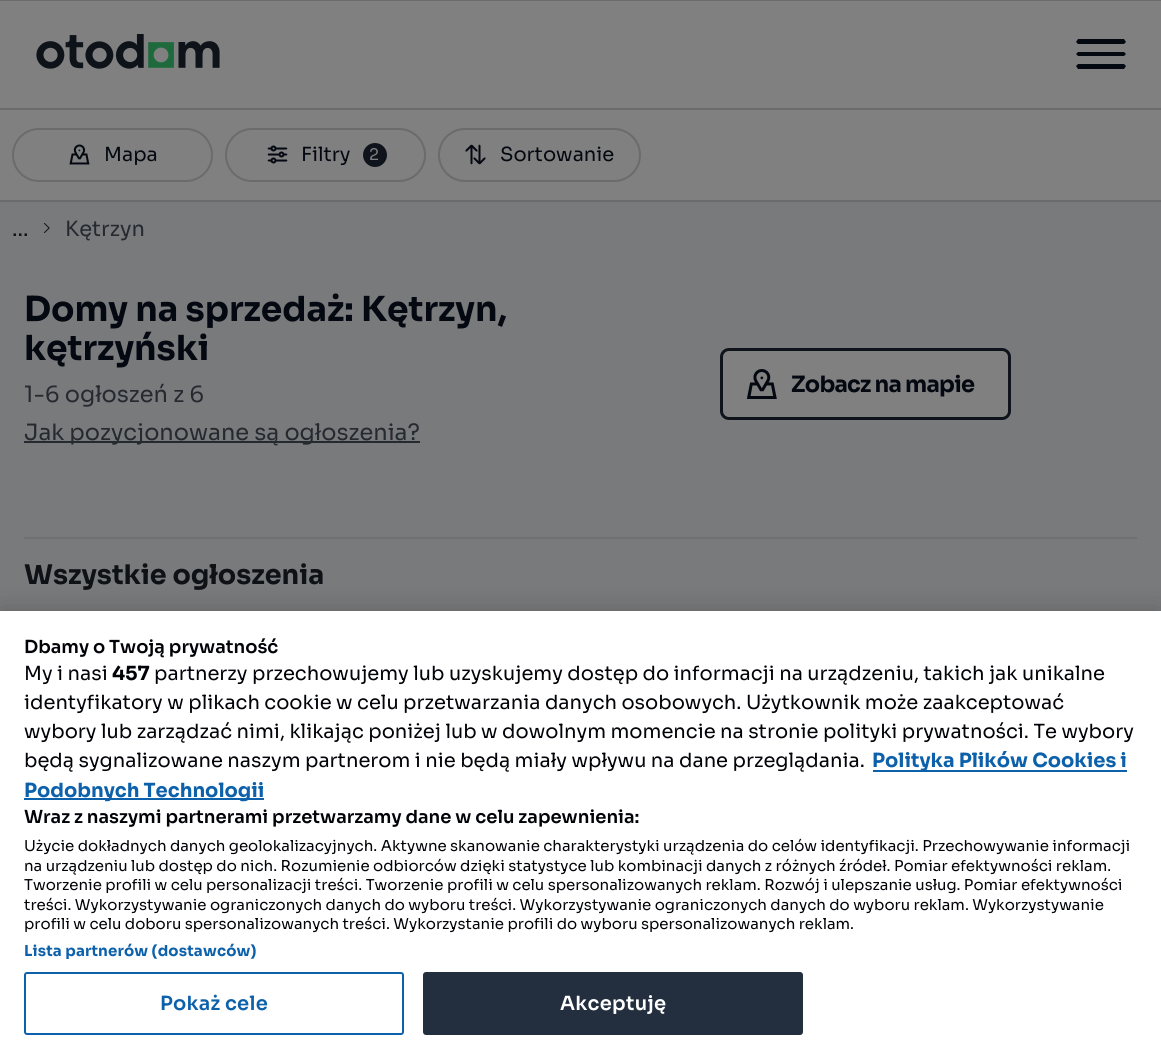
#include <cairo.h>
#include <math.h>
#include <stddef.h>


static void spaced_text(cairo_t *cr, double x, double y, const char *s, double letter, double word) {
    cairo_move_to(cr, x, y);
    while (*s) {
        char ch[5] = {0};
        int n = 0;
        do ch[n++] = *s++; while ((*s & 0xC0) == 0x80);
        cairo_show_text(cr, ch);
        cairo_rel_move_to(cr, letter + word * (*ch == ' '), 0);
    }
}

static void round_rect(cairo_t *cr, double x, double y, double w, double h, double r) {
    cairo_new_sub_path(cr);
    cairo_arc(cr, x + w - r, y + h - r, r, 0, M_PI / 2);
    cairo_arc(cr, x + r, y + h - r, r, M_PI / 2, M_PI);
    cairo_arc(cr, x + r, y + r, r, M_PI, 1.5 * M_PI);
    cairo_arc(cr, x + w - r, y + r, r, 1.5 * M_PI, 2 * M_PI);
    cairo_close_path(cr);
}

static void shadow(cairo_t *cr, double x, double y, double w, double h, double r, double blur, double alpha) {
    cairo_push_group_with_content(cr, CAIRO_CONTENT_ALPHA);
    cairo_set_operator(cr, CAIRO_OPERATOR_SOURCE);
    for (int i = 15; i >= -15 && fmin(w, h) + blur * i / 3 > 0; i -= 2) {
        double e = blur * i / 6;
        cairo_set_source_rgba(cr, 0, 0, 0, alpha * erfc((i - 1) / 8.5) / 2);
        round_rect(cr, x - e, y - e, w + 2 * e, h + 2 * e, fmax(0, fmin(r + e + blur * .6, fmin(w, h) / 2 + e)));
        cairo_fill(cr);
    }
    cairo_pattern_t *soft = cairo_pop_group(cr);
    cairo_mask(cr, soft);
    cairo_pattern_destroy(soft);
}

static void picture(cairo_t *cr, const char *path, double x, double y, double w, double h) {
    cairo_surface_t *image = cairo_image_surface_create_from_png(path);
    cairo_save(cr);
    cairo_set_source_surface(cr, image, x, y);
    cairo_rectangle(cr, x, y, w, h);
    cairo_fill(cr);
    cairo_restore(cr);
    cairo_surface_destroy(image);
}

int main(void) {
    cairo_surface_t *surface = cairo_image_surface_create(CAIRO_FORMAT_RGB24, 1161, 1059);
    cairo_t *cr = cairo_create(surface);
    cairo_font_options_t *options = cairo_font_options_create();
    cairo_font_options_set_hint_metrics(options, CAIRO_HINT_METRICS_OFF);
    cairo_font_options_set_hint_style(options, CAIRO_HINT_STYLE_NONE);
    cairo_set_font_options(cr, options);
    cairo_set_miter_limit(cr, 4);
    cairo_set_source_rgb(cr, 0.502, 0.502, 0.502);
    cairo_paint(cr);
    cairo_set_source_rgb(cr, 0.416, 0.42, 0.427);
    cairo_rectangle(cr, 0, 108, 1161, 2);
    cairo_fill(cr);
    picture(cr, "img1.png", 36, 34, 184, 35);
    cairo_set_source_rgb(cr, 0.016, 0.035, 0.067);
    cairo_new_path(cr);
    cairo_move_to(cr, 1076, 42);
    cairo_line_to(cr, 1078, 39);
    cairo_line_to(cr, 1124, 39);
    cairo_line_to(cr, 1126, 42);
    cairo_line_to(cr, 1124, 44);
    cairo_line_to(cr, 1078, 44);
    cairo_close_path(cr);
    cairo_move_to(cr, 1078, 52);
    cairo_line_to(cr, 1076, 54);
    cairo_line_to(cr, 1078, 56);
    cairo_line_to(cr, 1124, 56);
    cairo_line_to(cr, 1126, 54);
    cairo_line_to(cr, 1124, 52);
    cairo_close_path(cr);
    cairo_move_to(cr, 1078, 64);
    cairo_line_to(cr, 1076, 66);
    cairo_line_to(cr, 1078, 69);
    cairo_line_to(cr, 1124, 69);
    cairo_line_to(cr, 1126, 66);
    cairo_line_to(cr, 1124, 64);
    cairo_close_path(cr);
    cairo_fill(cr);
    cairo_set_source_rgb(cr, 0.475, 0.478, 0.482);
    cairo_rectangle(cr, 0, 202, 1161, 409);
    cairo_fill(cr);
    cairo_set_source_rgb(cr, 0.416, 0.42, 0.427);
    cairo_rectangle(cr, 0, 0, 1161, 1);
    cairo_fill(cr);
    cairo_rectangle(cr, 0, 200, 1161, 2);
    cairo_fill(cr);
    round_rect(cr, 13, 129, 199, 52, 26);
    cairo_stroke(cr);
    picture(cr, "img2.png", 69, 144, 21, 21);
    cairo_select_font_face(cr, "Sora", CAIRO_FONT_SLANT_NORMAL, CAIRO_FONT_WEIGHT_NORMAL);
    cairo_set_font_size(cr, 19.5);
    cairo_set_source_rgb(cr, 0.016, 0.035, 0.067);
    cairo_move_to(cr, 104, 161);
    cairo_show_text(cr, "Mapa");
    round_rect(cr, 226, 129, 199, 52, 26);
    cairo_set_source_rgb(cr, 0.416, 0.42, 0.427);
    cairo_stroke(cr);
    picture(cr, "img3.png", 267, 145, 21, 19);
    cairo_set_source_rgb(cr, 0.016, 0.035, 0.067);
    cairo_move_to(cr, 301, 161);
    cairo_show_text(cr, "Filtry");
    cairo_set_source_rgb(cr, 0.055, 0.075, 0.11);
    cairo_new_path(cr);
    cairo_arc(cr, 375, 155, 12, 0, 2 * M_PI);
    cairo_fill(cr);
    cairo_set_font_size(cr, 16);
    cairo_set_source_rgb(cr, 0.502, 0.502, 0.502);
    spaced_text(cr, 369, 160, "2", 1, 0);
    round_rect(cr, 439, 129, 201, 52, 26);
    cairo_set_source_rgb(cr, 0.416, 0.42, 0.427);
    cairo_stroke(cr);
    picture(cr, "img4.png", 465, 144, 21, 21);
    cairo_set_font_size(cr, 19.5);
    cairo_set_source_rgb(cr, 0.016, 0.035, 0.067);
    cairo_move_to(cr, 500, 161);
    cairo_show_text(cr, "Sortowanie");
    picture(cr, "img5.png", 44, 223, 6, 10);
    cairo_set_font_size(cr, 21);
    cairo_set_source_rgb(cr, 0.145, 0.161, 0.188);
    cairo_move_to(cr, 65, 236);
    cairo_show_text(cr, "Kętrzyn");
    cairo_set_source_rgb(cr, 0.055, 0.071, 0.09);
    cairo_move_to(cr, 12, 236);
    cairo_show_text(cr, "...");
    cairo_select_font_face(cr, "Sora", CAIRO_FONT_SLANT_NORMAL, CAIRO_FONT_WEIGHT_BOLD);
    cairo_set_font_size(cr, 34.5);
    cairo_set_source_rgb(cr, 0.016, 0.035, 0.067);
    cairo_move_to(cr, 24, 321);
    cairo_show_text(cr, "Domy na sprzedaż: Kętrzyn,");
    cairo_move_to(cr, 24, 360);
    cairo_show_text(cr, "kętrzyński");
    cairo_select_font_face(cr, "Sora", CAIRO_FONT_SLANT_NORMAL, CAIRO_FONT_WEIGHT_NORMAL);
    cairo_set_font_size(cr, 22.5);
    cairo_set_source_rgb(cr, 0.145, 0.161, 0.188);
    cairo_move_to(cr, 24, 402);
    cairo_show_text(cr, "1-6 ogłoszeń z 6");
    cairo_rectangle(cr, 24, 441, 396, 2);
    cairo_fill(cr);
    cairo_move_to(cr, 24, 440);
    cairo_show_text(cr, "Jak pozycjonowane są ogłoszenia?");
    cairo_set_source_rgb(cr, 0.502, 0.502, 0.502);
    round_rect(cr, 721.5, 349.5, 288, 69, 7.5);
    cairo_fill_preserve(cr);
    cairo_set_source_rgb(cr, 0.055, 0.075, 0.11);
    cairo_set_line_width(cr, 3);
    cairo_stroke(cr);
    picture(cr, "img6.png", 746, 369, 31, 30);
    cairo_select_font_face(cr, "Sora", CAIRO_FONT_SLANT_NORMAL, CAIRO_FONT_WEIGHT_BOLD);
    cairo_set_source_rgb(cr, 0.016, 0.035, 0.067);
    spaced_text(cr, 791, 392, "Zobacz na mapie", -0.75, 0);
    cairo_set_source_rgb(cr, 0.439, 0.439, 0.439);
    cairo_rectangle(cr, 24, 537, 1113, 2);
    cairo_fill(cr);
    cairo_set_font_size(cr, 27);
    cairo_set_source_rgb(cr, 0.055, 0.071, 0.09);
    cairo_move_to(cr, 24, 584);
    cairo_show_text(cr, "Wszystkie ogłoszenia");
    cairo_set_source_rgb(cr, 0, 0, 0);
    shadow(cr, 0, 611, 1161, 448, 0, 13.5, 0.2);
    cairo_set_source_rgb(cr, 1, 1, 1);
    cairo_rectangle(cr, 0, 611, 1161, 448);
    cairo_fill(cr);
    cairo_select_font_face(cr, "Sora SemiBold", CAIRO_FONT_SLANT_NORMAL, CAIRO_FONT_WEIGHT_NORMAL);
    cairo_set_font_size(cr, 18);
    cairo_set_source_rgb(cr, 0.008, 0.012, 0.035);
    cairo_move_to(cr, 24, 653);
    cairo_show_text(cr, "Dbamy o Twoją prywatność");
    cairo_select_font_face(cr, "Sora", CAIRO_FONT_SLANT_NORMAL, CAIRO_FONT_WEIGHT_NORMAL);
    cairo_set_font_size(cr, 19.5);
    cairo_move_to(cr, 24, 680);
    cairo_show_text(cr, "My i nasi");
    cairo_select_font_face(cr, "Sora", CAIRO_FONT_SLANT_NORMAL, CAIRO_FONT_WEIGHT_BOLD);
    cairo_move_to(cr, 112, 680);
    cairo_show_text(cr, "457");
    cairo_select_font_face(cr, "Sora", CAIRO_FONT_SLANT_NORMAL, CAIRO_FONT_WEIGHT_NORMAL);
    cairo_move_to(cr, 154, 680);
    cairo_show_text(cr, "partnerzy przechowujemy lub uzyskujemy dostęp do informacji na urządzeniu, takich jak unikalne");
    cairo_move_to(cr, 24, 709);
    cairo_show_text(cr, "identyfikatory w plikach cookie w celu przetwarzania danych osobowych. Użytkownik może zaakceptować");
    cairo_move_to(cr, 24, 738);
    cairo_show_text(cr, "wybory lub zarządzać nimi, klikając poniżej lub w dowolnym momencie na stronie polityki prywatności. Te wybory");
    cairo_move_to(cr, 24, 767);
    cairo_show_text(cr, "będą sygnalizowane naszym partnerom i nie będą miały wpływu na dane przeglądania.");
    cairo_set_source_rgb(cr, 0.051, 0.38, 0.671);
    cairo_rectangle(cr, 873, 770, 254, 2);
    cairo_fill(cr);
    cairo_select_font_face(cr, "Sora", CAIRO_FONT_SLANT_NORMAL, CAIRO_FONT_WEIGHT_BOLD);
    cairo_move_to(cr, 872, 767);
    cairo_show_text(cr, "Polityka Plików Cookies i");
    cairo_rectangle(cr, 24, 798, 240, 2);
    cairo_fill(cr);
    cairo_move_to(cr, 24, 797);
    cairo_show_text(cr, "Podobnych Technologii");
    cairo_select_font_face(cr, "Sora SemiBold", CAIRO_FONT_SLANT_NORMAL, CAIRO_FONT_WEIGHT_NORMAL);
    cairo_set_font_size(cr, 18);
    cairo_set_source_rgb(cr, 0.008, 0.012, 0.035);
    cairo_move_to(cr, 24, 823);
    cairo_show_text(cr, "Wraz z naszymi partnerami przetwarzamy dane w celu zapewnienia:");
    cairo_select_font_face(cr, "Sora", CAIRO_FONT_SLANT_NORMAL, CAIRO_FONT_WEIGHT_NORMAL);
    cairo_set_font_size(cr, 15);
    cairo_move_to(cr, 24, 851);
    cairo_show_text(cr, "Użycie dokładnych danych geolokalizacyjnych. Aktywne skanowanie charakterystyki urządzenia do celów identyfikacji. Przechowywanie informacji");
    cairo_move_to(cr, 24, 871);
    cairo_show_text(cr, "na urządzeniu lub dostęp do nich. Rozumienie odbiorców dzięki statystyce lub kombinacji danych z różnych źródeł. Pomiar efektywności reklam.");
    cairo_move_to(cr, 24, 890);
    cairo_show_text(cr, "Tworzenie profili w celu personalizacji treści. Tworzenie profili w celu spersonalizowanych reklam. Rozwój i ulepszanie usług. Pomiar efektywności");
    cairo_move_to(cr, 24, 910);
    cairo_show_text(cr, "treści. Wykorzystywanie ograniczonych danych do wyboru treści. Wykorzystywanie ograniczonych danych do wyboru reklam. Wykorzystywanie");
    cairo_move_to(cr, 24, 929);
    cairo_show_text(cr, "profili w celu doboru spersonalizowanych treści. Wykorzystanie profili do wyboru spersonalizowanych reklam.");
    cairo_select_font_face(cr, "Sora", CAIRO_FONT_SLANT_NORMAL, CAIRO_FONT_WEIGHT_BOLD);
    cairo_set_source_rgb(cr, 0.051, 0.38, 0.671);
    spaced_text(cr, 24, 956, "Lista partnerów (dostawców)", 0.15, 0);
    round_rect(cr, 25, 973, 378, 61, 2);
    cairo_set_line_width(cr, 2);
    cairo_stroke(cr);
    cairo_select_font_face(cr, "Sora SemiBold", CAIRO_FONT_SLANT_NORMAL, CAIRO_FONT_WEIGHT_NORMAL);
    cairo_set_font_size(cr, 19.5);
    spaced_text(cr, 160, 1010, "Pokaż cele", 0.25, 0);
    cairo_set_source_rgb(cr, 0.137, 0.18, 0.247);
    round_rect(cr, 424, 973, 378, 61, 2);
    cairo_fill_preserve(cr);
    cairo_stroke(cr);
    cairo_set_source_rgb(cr, 1, 1, 1);
    spaced_text(cr, 560, 1010, "Akceptuję", 0.25, 0);
    cairo_surface_write_to_png(surface, "page.png");
    cairo_font_options_destroy(options);
    cairo_destroy(cr);
    cairo_surface_destroy(surface);
    return 0;
}
